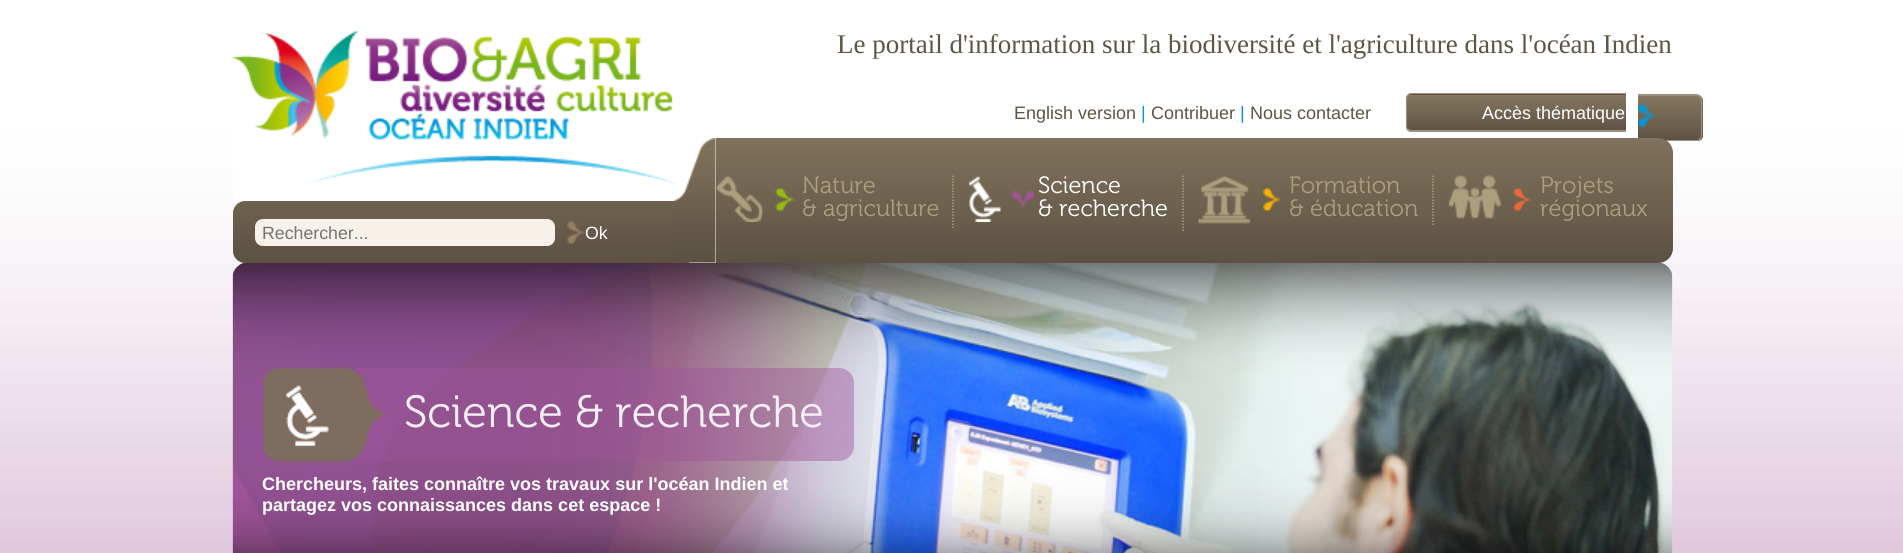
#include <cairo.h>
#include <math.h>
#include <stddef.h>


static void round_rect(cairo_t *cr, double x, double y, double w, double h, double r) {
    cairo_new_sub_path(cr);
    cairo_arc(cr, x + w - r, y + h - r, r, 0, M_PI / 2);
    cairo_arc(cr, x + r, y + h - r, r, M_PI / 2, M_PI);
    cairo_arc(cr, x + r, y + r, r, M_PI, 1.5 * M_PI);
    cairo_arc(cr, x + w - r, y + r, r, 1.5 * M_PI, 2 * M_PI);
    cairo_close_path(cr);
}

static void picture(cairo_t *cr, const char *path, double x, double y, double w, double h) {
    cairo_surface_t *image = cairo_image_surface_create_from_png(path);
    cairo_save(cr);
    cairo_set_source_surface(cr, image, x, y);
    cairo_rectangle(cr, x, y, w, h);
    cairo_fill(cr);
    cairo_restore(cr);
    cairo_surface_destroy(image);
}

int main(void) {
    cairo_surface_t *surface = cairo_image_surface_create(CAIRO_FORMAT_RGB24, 1903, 553);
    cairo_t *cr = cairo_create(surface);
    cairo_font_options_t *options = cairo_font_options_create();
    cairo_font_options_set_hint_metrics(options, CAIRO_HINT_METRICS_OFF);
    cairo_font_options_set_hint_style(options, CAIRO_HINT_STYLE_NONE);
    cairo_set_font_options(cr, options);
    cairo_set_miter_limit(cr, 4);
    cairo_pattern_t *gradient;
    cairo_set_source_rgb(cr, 1, 1, 1);
    cairo_paint(cr);
    picture(cr, "img1.png", 0, 0, 1903, 553);
    cairo_set_source_rgb(cr, 1, 1, 1);
    cairo_new_path(cr);
    cairo_move_to(cr, 233, 30);
    cairo_line_to(cr, 1673, 30);
    cairo_line_to(cr, 1673, 248);
    cairo_curve_to(cr, 1673, 256.5, 1666.5, 263, 1658, 263);
    cairo_line_to(cr, 248, 263);
    cairo_curve_to(cr, 239.5, 263, 233, 256.5, 233, 248);
    cairo_close_path(cr);
    cairo_fill(cr);
    picture(cr, "img2.png", 232, 30, 455, 157);
    cairo_select_font_face(cr, "Liberation Serif", CAIRO_FONT_SLANT_NORMAL, CAIRO_FONT_WEIGHT_NORMAL);
    cairo_set_font_size(cr, 27);
    cairo_set_source_rgb(cr, 0.373, 0.329, 0.271);
    cairo_move_to(cr, 837, 53);
    cairo_show_text(cr, "Le portail d'information sur la biodiversité et l'agriculture dans l'océan Indien");
    cairo_select_font_face(cr, "Liberation Sans", CAIRO_FONT_SLANT_NORMAL, CAIRO_FONT_WEIGHT_NORMAL);
    cairo_set_font_size(cr, 18);
    cairo_move_to(cr, 1014, 119);
    cairo_show_text(cr, "English version");
    cairo_set_source_rgb(cr, 0, 0.596, 0.855);
    cairo_move_to(cr, 1141, 119);
    cairo_show_text(cr, "|");
    cairo_set_source_rgb(cr, 0.373, 0.329, 0.271);
    cairo_move_to(cr, 1151, 119);
    cairo_show_text(cr, "Contribuer");
    cairo_set_source_rgb(cr, 0, 0.596, 0.855);
    cairo_move_to(cr, 1240, 119);
    cairo_show_text(cr, "|");
    cairo_set_source_rgb(cr, 0.373, 0.329, 0.271);
    cairo_move_to(cr, 1250, 119);
    cairo_show_text(cr, "Nous contacter");
    cairo_set_source_rgb(cr, 0.369, 0.325, 0.267);
    cairo_new_path(cr);
    cairo_move_to(cr, 1412, 93);
    cairo_line_to(cr, 1626, 93);
    cairo_line_to(cr, 1626, 132);
    cairo_line_to(cr, 1412, 132);
    cairo_curve_to(cr, 1408.5, 132, 1406, 129.5, 1406, 126);
    cairo_line_to(cr, 1406, 99);
    cairo_curve_to(cr, 1406, 95.5, 1408.5, 93, 1412, 93);
    cairo_close_path(cr);
    cairo_fill(cr);
    cairo_save(cr);
    cairo_new_path(cr);
    cairo_move_to(cr, 1412, 93);
    cairo_line_to(cr, 1626, 93);
    cairo_line_to(cr, 1626, 132);
    cairo_line_to(cr, 1412, 132);
    cairo_curve_to(cr, 1408.5, 132, 1406, 129.5, 1406, 126);
    cairo_line_to(cr, 1406, 99);
    cairo_curve_to(cr, 1406, 95.5, 1408.5, 93, 1412, 93);
    cairo_close_path(cr);
    cairo_clip(cr);
    gradient = cairo_pattern_create_linear(1517, 94, 1517, 131);
    cairo_pattern_add_color_stop_rgba(gradient, 0, 0.522, 0.467, 0.376, 1);
    cairo_pattern_add_color_stop_rgba(gradient, 1, 0.369, 0.325, 0.267, 1);
    cairo_set_source(cr, gradient);
    cairo_pattern_destroy(gradient);
    cairo_rectangle(cr, 1406, 95, 220, 36);
    cairo_fill(cr);
    cairo_restore(cr);
    cairo_set_source_rgb(cr, 0.62, 0.569, 0.494);
    cairo_set_fill_rule(cr, CAIRO_FILL_RULE_EVEN_ODD);
    cairo_new_path(cr);
    cairo_move_to(cr, 1412, 93);
    cairo_line_to(cr, 1626, 93);
    cairo_line_to(cr, 1626, 132);
    cairo_line_to(cr, 1412, 132);
    cairo_curve_to(cr, 1408, 132, 1406, 129, 1406, 126);
    cairo_line_to(cr, 1406, 99);
    cairo_curve_to(cr, 1406, 96, 1408, 93, 1412, 93);
    cairo_close_path(cr);
    cairo_move_to(cr, 1412, 94);
    cairo_line_to(cr, 1626, 94);
    cairo_line_to(cr, 1626, 130);
    cairo_line_to(cr, 1412, 130);
    cairo_curve_to(cr, 1409, 130, 1407, 128, 1407, 126);
    cairo_line_to(cr, 1407, 99);
    cairo_curve_to(cr, 1407, 97, 1409, 94, 1412, 94);
    cairo_close_path(cr);
    cairo_fill(cr);
    cairo_set_source_rgb(cr, 0.369, 0.325, 0.267);
    cairo_new_path(cr);
    cairo_move_to(cr, 1638, 95);
    cairo_line_to(cr, 1697, 95);
    cairo_curve_to(cr, 1700.5, 95, 1703, 97.5, 1703, 101);
    cairo_line_to(cr, 1703, 135);
    cairo_curve_to(cr, 1703, 138.5, 1700.5, 141, 1697, 141);
    cairo_line_to(cr, 1638, 141);
    cairo_close_path(cr);
    cairo_fill(cr);
    cairo_save(cr);
    cairo_set_fill_rule(cr, CAIRO_FILL_RULE_WINDING);
    cairo_new_path(cr);
    cairo_move_to(cr, 1638, 95);
    cairo_line_to(cr, 1697, 95);
    cairo_curve_to(cr, 1700.5, 95, 1703, 97.5, 1703, 101);
    cairo_line_to(cr, 1703, 135);
    cairo_curve_to(cr, 1703, 138.5, 1700.5, 141, 1697, 141);
    cairo_line_to(cr, 1638, 141);
    cairo_close_path(cr);
    cairo_clip(cr);
    gradient = cairo_pattern_create_linear(1670, 96, 1670, 140);
    cairo_pattern_add_color_stop_rgba(gradient, 0, 0.522, 0.467, 0.376, 1);
    cairo_pattern_add_color_stop_rgba(gradient, 1, 0.369, 0.325, 0.267, 1);
    cairo_set_source(cr, gradient);
    cairo_pattern_destroy(gradient);
    cairo_rectangle(cr, 1638, 96, 65, 44);
    cairo_fill(cr);
    cairo_restore(cr);
    cairo_set_source_rgb(cr, 0.62, 0.569, 0.494);
    cairo_new_path(cr);
    cairo_move_to(cr, 1638, 94);
    cairo_line_to(cr, 1696, 94);
    cairo_curve_to(cr, 1700, 94, 1702, 97, 1702, 100);
    cairo_line_to(cr, 1702, 135);
    cairo_curve_to(cr, 1702, 138, 1700, 141, 1696, 141);
    cairo_line_to(cr, 1638, 141);
    cairo_close_path(cr);
    cairo_move_to(cr, 1638, 96);
    cairo_line_to(cr, 1696, 96);
    cairo_curve_to(cr, 1699, 96, 1701, 98, 1701, 100);
    cairo_line_to(cr, 1701, 135);
    cairo_curve_to(cr, 1701, 137, 1699, 140, 1696, 140);
    cairo_line_to(cr, 1638, 140);
    cairo_close_path(cr);
    cairo_fill(cr);
    cairo_set_source_rgb(cr, 1, 1, 1);
    cairo_move_to(cr, 1482, 119);
    cairo_show_text(cr, "Accès thématique");
    picture(cr, "img3.png", 1638, 103, 18, 25);
    picture(cr, "img14.png", 232, 262, 1441, 291);
    gradient = cairo_pattern_create_linear(1194, 138, 1194, 263);
    cairo_pattern_add_color_stop_rgba(gradient, 0, 0.502, 0.447, 0.361, 1);
    cairo_pattern_add_color_stop_rgba(gradient, 1, 0.361, 0.322, 0.263, 1);
    cairo_set_source(cr, gradient);
    cairo_pattern_destroy(gradient);
    cairo_new_path(cr);
    cairo_move_to(cr, 716, 138);
    cairo_line_to(cr, 1658, 138);
    cairo_curve_to(cr, 1666.5, 138, 1673, 144.5, 1673, 153);
    cairo_line_to(cr, 1673, 248);
    cairo_curve_to(cr, 1673, 256.5, 1666.5, 263, 1658, 263);
    cairo_line_to(cr, 716, 263);
    cairo_close_path(cr);
    cairo_fill(cr);
    gradient = cairo_pattern_create_linear(461, 201, 461, 263);
    cairo_pattern_add_color_stop_rgba(gradient, 0, 0.431, 0.384, 0.31, 1);
    cairo_pattern_add_color_stop_rgba(gradient, 1, 0.361, 0.322, 0.263, 1);
    cairo_set_source(cr, gradient);
    cairo_pattern_destroy(gradient);
    cairo_new_path(cr);
    cairo_move_to(cr, 245, 201);
    cairo_line_to(cr, 689, 201);
    cairo_line_to(cr, 689, 263);
    cairo_line_to(cr, 245, 263);
    cairo_curve_to(cr, 238.5, 263, 233, 257.5, 233, 251);
    cairo_line_to(cr, 233, 213);
    cairo_curve_to(cr, 233, 206.5, 238.5, 201, 245, 201);
    cairo_close_path(cr);
    cairo_fill(cr);
    picture(cr, "img4.png", 673, 138, 43, 125);
    picture(cr, "img5.png", 775, 187, 20, 25);
    picture(cr, "img6.png", 716, 175, 48, 47);
    cairo_select_font_face(cr, "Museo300", CAIRO_FONT_SLANT_NORMAL, CAIRO_FONT_WEIGHT_NORMAL);
    cairo_set_font_size(cr, 23.5);
    cairo_set_source_rgb(cr, 0.678, 0.62, 0.494);
    cairo_move_to(cr, 802, 193);
    cairo_show_text(cr, "Nature");
    cairo_move_to(cr, 802, 216);
    cairo_show_text(cr, "& agriculture");
    picture(cr, "img7.png", 1011, 190, 24, 19);
    cairo_new_path(cr);
    cairo_move_to(cr, 953, 175.5);
    cairo_line_to(cr, 953, 229.5);
    cairo_set_line_width(cr, 1.5);
    cairo_set_dash(cr, (double[]){1.5, 1.5}, 2, 0);
    cairo_stroke(cr);
    picture(cr, "img8.png", 969, 175, 32, 47);
    cairo_set_source_rgb(cr, 1, 1, 1);
    cairo_move_to(cr, 1038, 193);
    cairo_show_text(cr, "Science");
    cairo_move_to(cr, 1038, 216);
    cairo_show_text(cr, "& recherche");
    picture(cr, "img9.png", 1263, 187, 18, 25);
    cairo_new_path(cr);
    cairo_move_to(cr, 1183, 175.5);
    cairo_line_to(cr, 1183, 231);
    cairo_set_source_rgb(cr, 0.678, 0.62, 0.494);
    cairo_stroke(cr);
    picture(cr, "img10.png", 1198, 175, 53, 49);
    cairo_move_to(cr, 1289, 193);
    cairo_show_text(cr, "Formation");
    cairo_move_to(cr, 1289, 216);
    cairo_show_text(cr, "& éducation");
    picture(cr, "img11.png", 1513, 187, 19, 25);
    cairo_new_path(cr);
    cairo_move_to(cr, 1433, 175.5);
    cairo_line_to(cr, 1433, 226.5);
    cairo_stroke(cr);
    picture(cr, "img12.png", 1449, 175, 53, 44);
    cairo_move_to(cr, 1540, 193);
    cairo_show_text(cr, "Projets");
    cairo_move_to(cr, 1540, 216);
    cairo_show_text(cr, "régionaux");
    cairo_set_source_rgb(cr, 0.969, 0.945, 0.914);
    round_rect(cr, 255, 219, 300, 27, 8);
    cairo_fill(cr);
    cairo_select_font_face(cr, "Liberation Sans", CAIRO_FONT_SLANT_NORMAL, CAIRO_FONT_WEIGHT_NORMAL);
    cairo_set_font_size(cr, 17.75);
    cairo_set_source_rgb(cr, 0.459, 0.459, 0.459);
    cairo_move_to(cr, 262, 239);
    cairo_show_text(cr, "Rechercher...");
    picture(cr, "img13.png", 567, 220, 18, 25);
    cairo_set_source_rgb(cr, 1, 1, 1);
    cairo_move_to(cr, 585, 239);
    cairo_show_text(cr, "Ok");
    cairo_set_source_rgba(cr, 0.631, 0.333, 0.6, 0.45);
    round_rect(cr, 345, 368, 509, 93, 15);
    cairo_fill(cr);
    picture(cr, "img15.png", 262, 367, 127, 95);
    picture(cr, "img16.png", 286, 385, 43, 61);
    cairo_select_font_face(cr, "Museo300", CAIRO_FONT_SLANT_NORMAL, CAIRO_FONT_WEIGHT_NORMAL);
    cairo_set_font_size(cr, 45);
    cairo_set_source_rgb(cr, 0.961, 0.937, 0.961);
    cairo_move_to(cr, 404, 427);
    cairo_show_text(cr, "Science & recherche");
    cairo_select_font_face(cr, "Liberation Sans", CAIRO_FONT_SLANT_NORMAL, CAIRO_FONT_WEIGHT_BOLD);
    cairo_set_font_size(cr, 18);
    cairo_set_source_rgb(cr, 1, 1, 1);
    cairo_move_to(cr, 262, 490);
    cairo_show_text(cr, "Chercheurs, faites connaître vos travaux sur l'océan Indien et");
    cairo_move_to(cr, 262, 511);
    cairo_show_text(cr, "partagez vos connaissances dans cet espace !");
    cairo_surface_write_to_png(surface, "page.png");
    cairo_font_options_destroy(options);
    cairo_destroy(cr);
    cairo_surface_destroy(surface);
    return 0;
}
